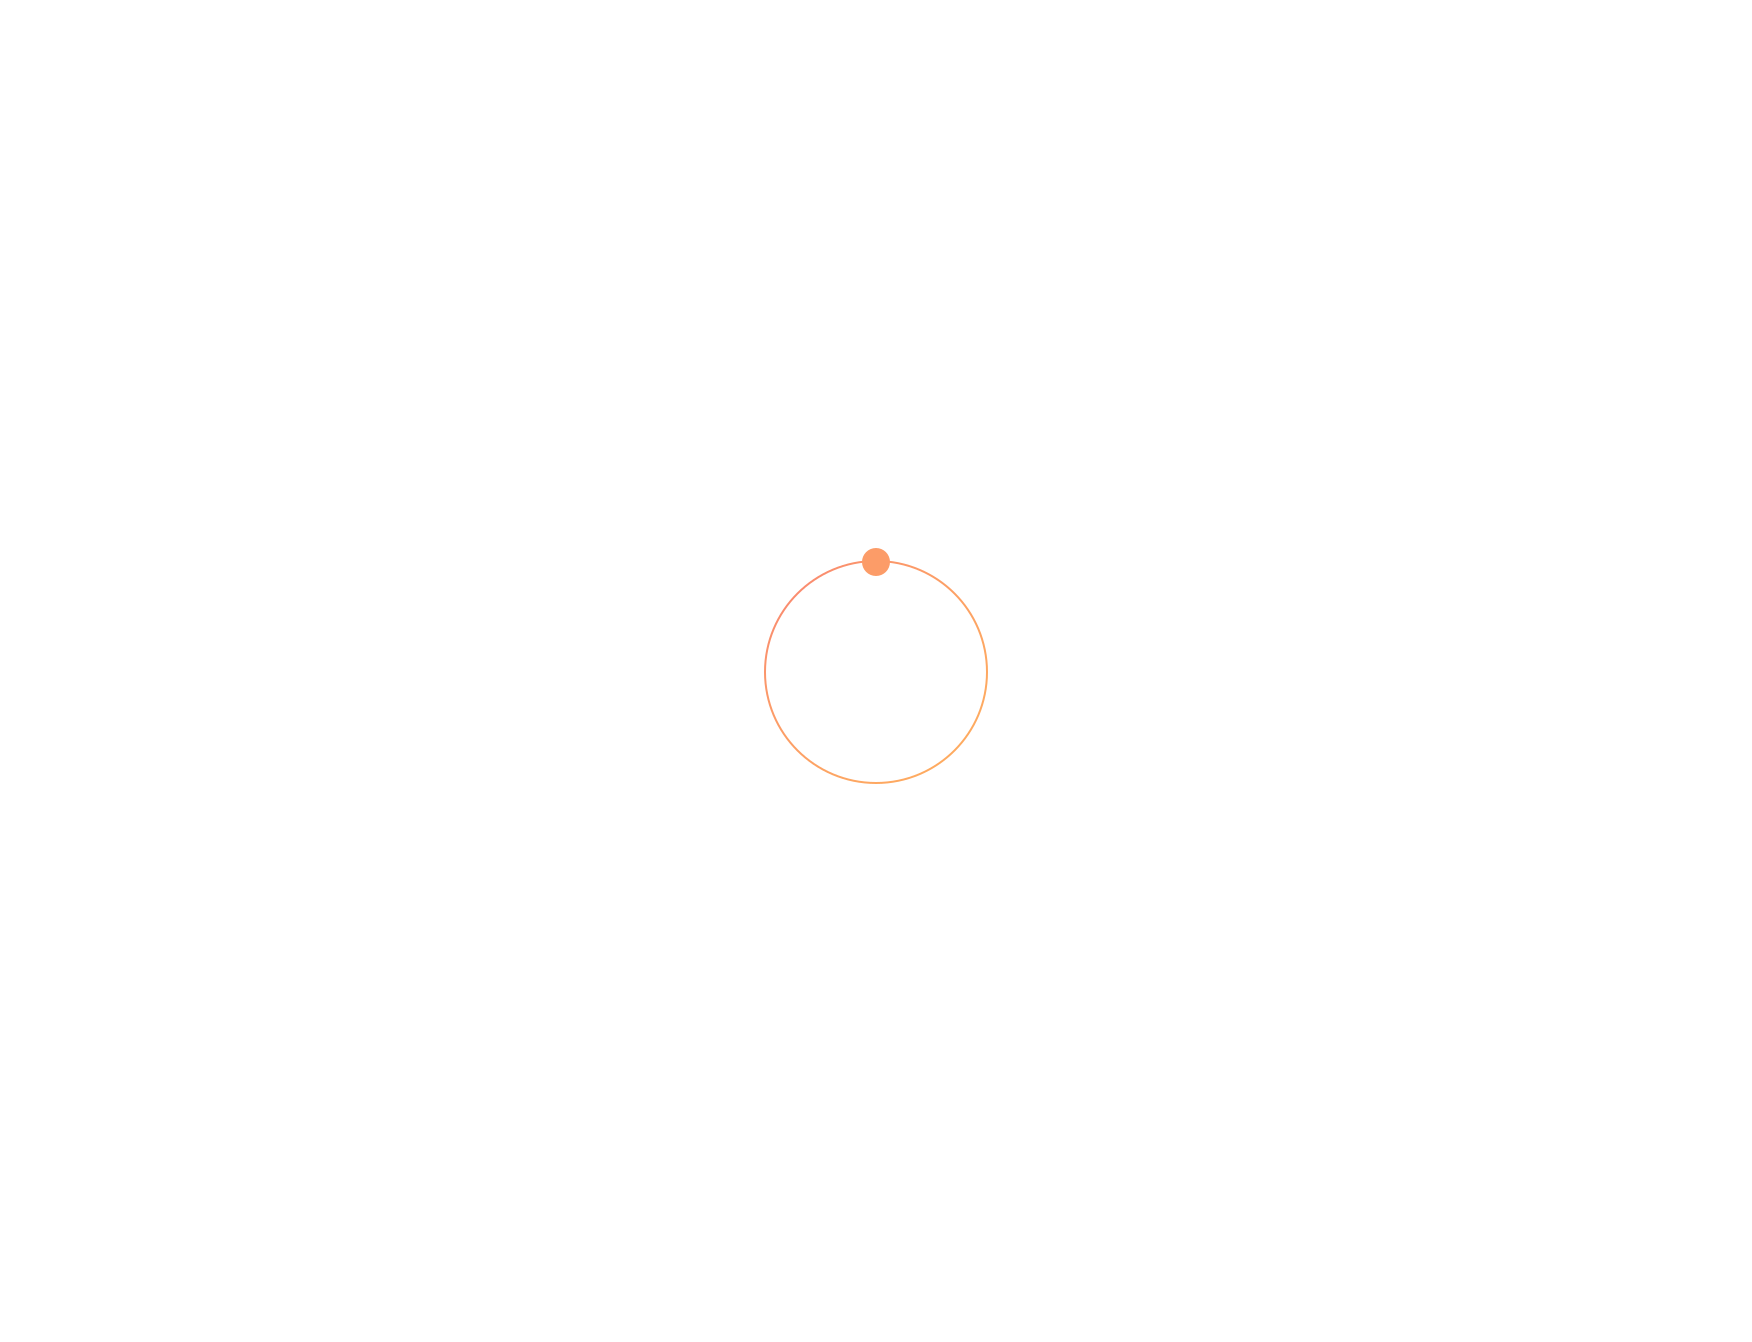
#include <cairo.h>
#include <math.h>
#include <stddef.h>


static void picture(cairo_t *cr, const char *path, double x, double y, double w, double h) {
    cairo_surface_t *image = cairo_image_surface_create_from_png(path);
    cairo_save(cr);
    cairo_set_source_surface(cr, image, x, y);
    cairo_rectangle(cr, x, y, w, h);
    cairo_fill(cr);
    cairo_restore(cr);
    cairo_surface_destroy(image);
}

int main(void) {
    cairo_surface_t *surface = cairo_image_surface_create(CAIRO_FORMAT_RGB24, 1752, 1342);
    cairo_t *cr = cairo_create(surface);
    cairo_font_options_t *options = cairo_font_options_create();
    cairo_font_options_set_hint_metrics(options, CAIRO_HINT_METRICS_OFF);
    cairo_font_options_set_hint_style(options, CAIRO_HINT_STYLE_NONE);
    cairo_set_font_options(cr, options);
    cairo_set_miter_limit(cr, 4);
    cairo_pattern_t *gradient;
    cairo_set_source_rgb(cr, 1, 1, 1);
    cairo_paint(cr);
    picture(cr, "img1.png", 30, 20, 116, 116);
    picture(cr, "img2.png", 176, 638, 32, 32);
    gradient = cairo_pattern_create_radial(764, 560, 0, 764, 560, 317);
    cairo_pattern_add_color_stop_rgba(gradient, 0, 0.976, 0.525, 0.447, 1);
    cairo_pattern_add_color_stop_rgba(gradient, 1, 1, 0.694, 0.365, 1);
    cairo_set_source(cr, gradient);
    cairo_pattern_destroy(gradient);
    cairo_arc(cr, 876, 672, 112, 0, 2 * M_PI);
    cairo_fill(cr);
    cairo_set_source_rgb(cr, 1, 1, 1);
    cairo_arc(cr, 876, 672, 110, 0, 2 * M_PI);
    cairo_fill(cr);
    cairo_set_source_rgb(cr, 0.988, 0.612, 0.408);
    cairo_arc(cr, 876, 562, 14, 0, 2 * M_PI);
    cairo_fill(cr);
    picture(cr, "img3.png", 152, 749, 417, 28);
    picture(cr, "img4.png", 1406, 1054, 16, 32);
    picture(cr, "img5.png", 1476, 1054, 38, 26);
    picture(cr, "img6.png", 1570, 1054, 32, 32);
    picture(cr, "img7.png", 150, 1210, 572, 61);
    cairo_surface_write_to_png(surface, "page.png");
    cairo_font_options_destroy(options);
    cairo_destroy(cr);
    cairo_surface_destroy(surface);
    return 0;
}
